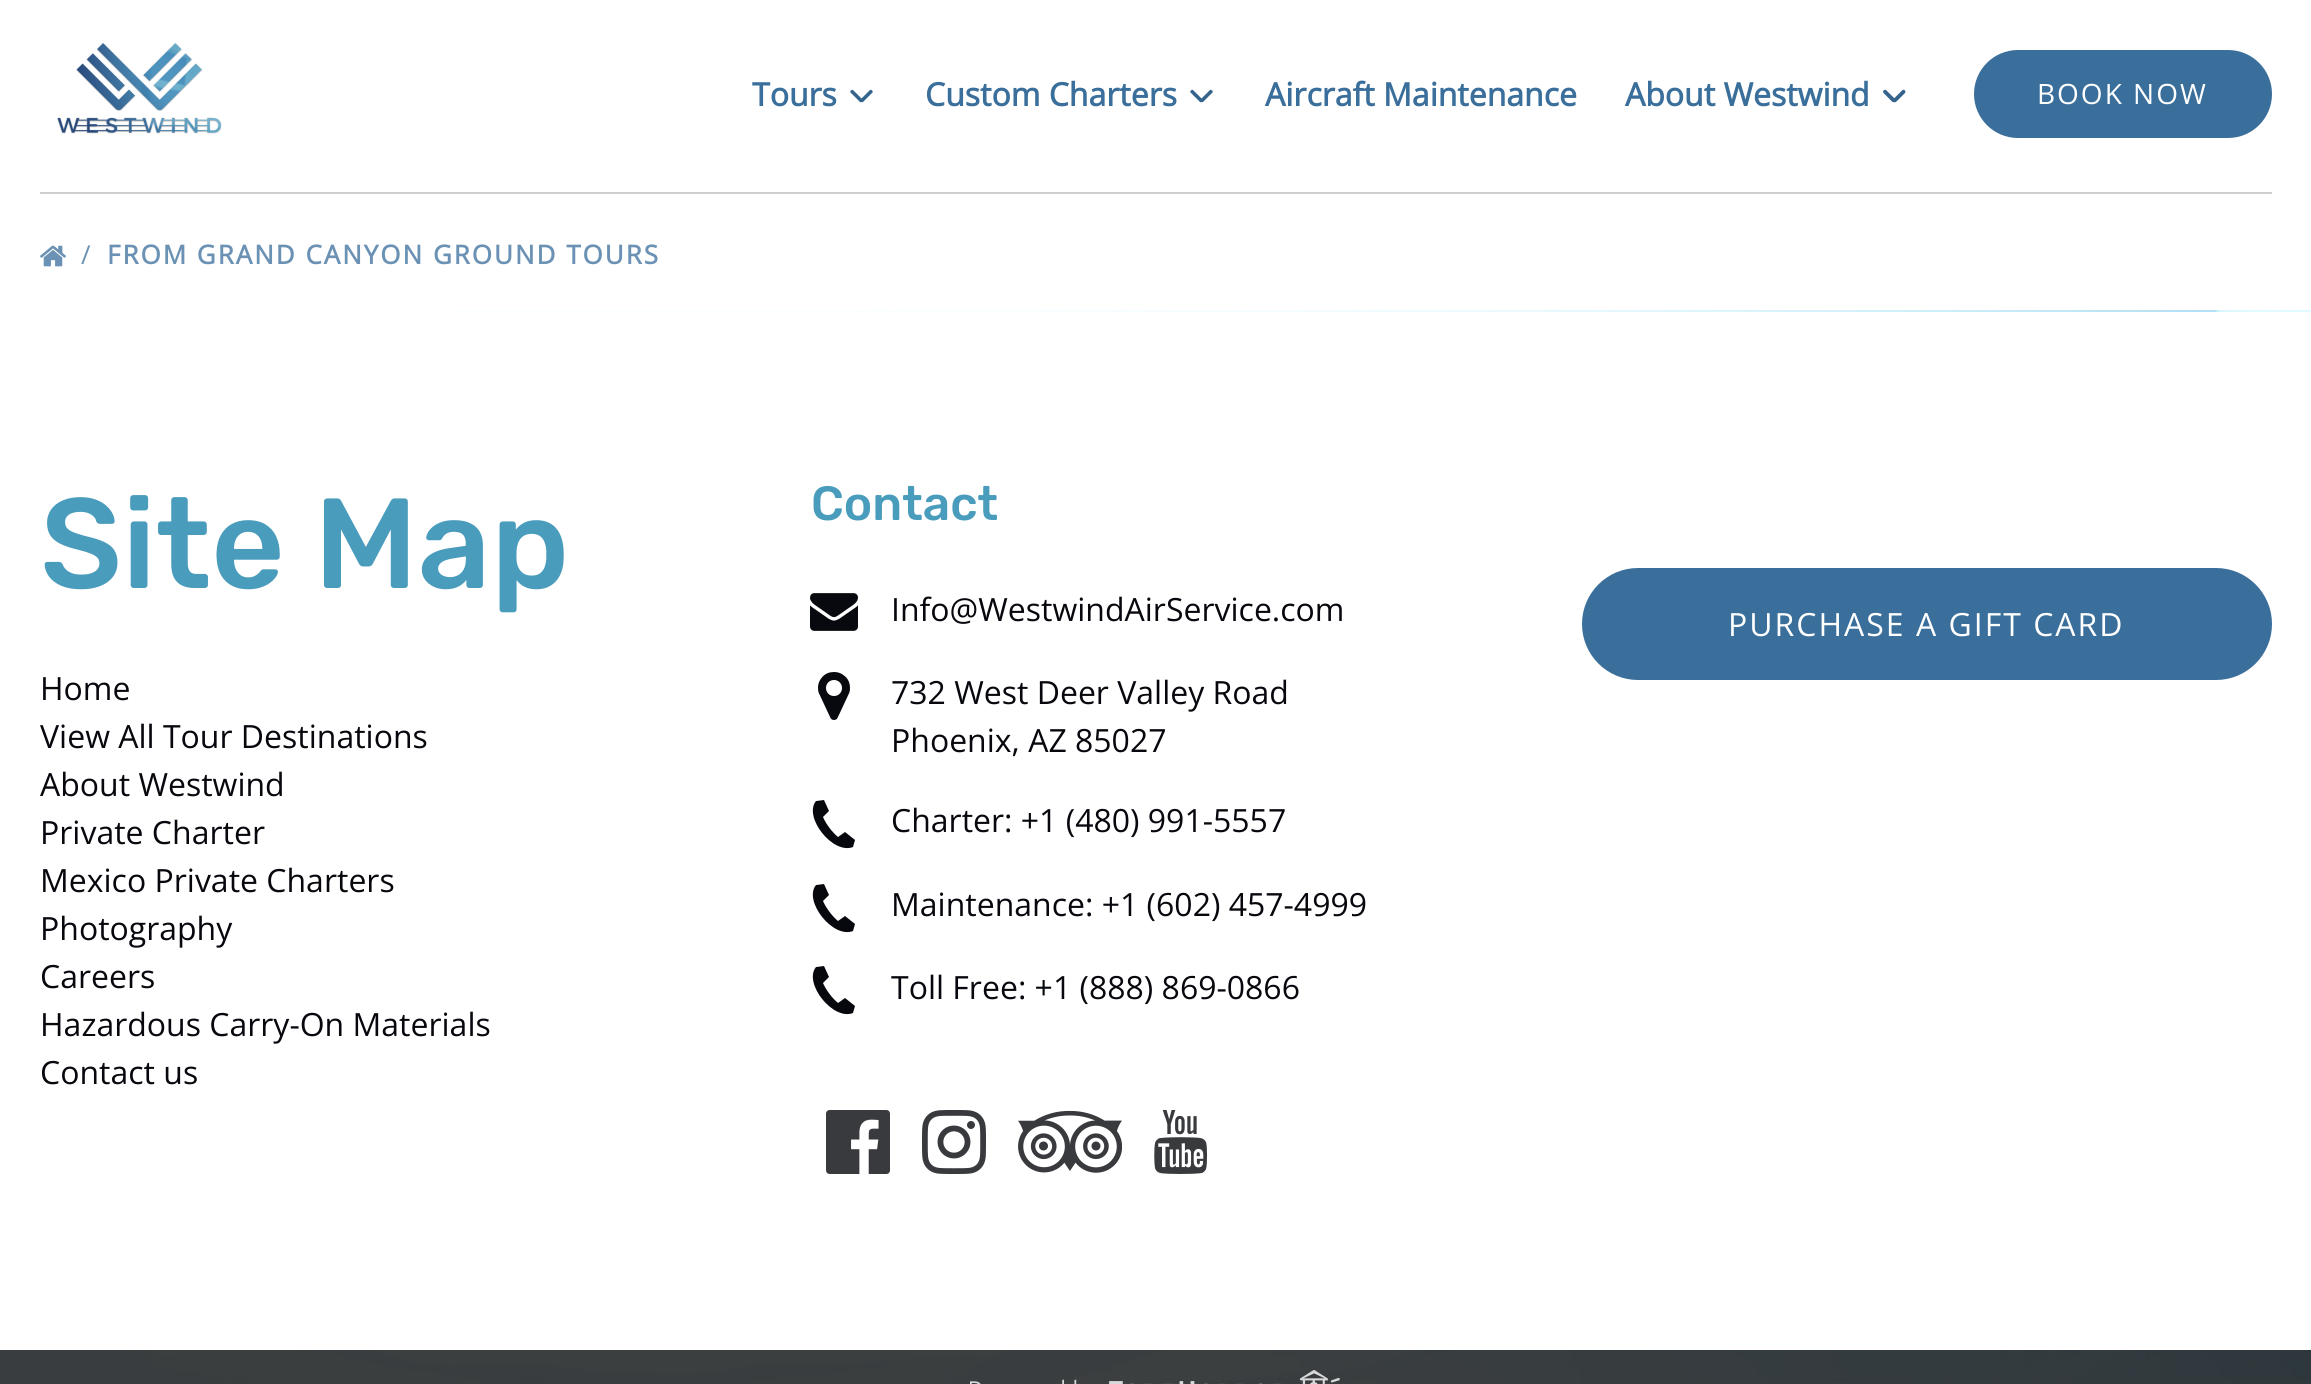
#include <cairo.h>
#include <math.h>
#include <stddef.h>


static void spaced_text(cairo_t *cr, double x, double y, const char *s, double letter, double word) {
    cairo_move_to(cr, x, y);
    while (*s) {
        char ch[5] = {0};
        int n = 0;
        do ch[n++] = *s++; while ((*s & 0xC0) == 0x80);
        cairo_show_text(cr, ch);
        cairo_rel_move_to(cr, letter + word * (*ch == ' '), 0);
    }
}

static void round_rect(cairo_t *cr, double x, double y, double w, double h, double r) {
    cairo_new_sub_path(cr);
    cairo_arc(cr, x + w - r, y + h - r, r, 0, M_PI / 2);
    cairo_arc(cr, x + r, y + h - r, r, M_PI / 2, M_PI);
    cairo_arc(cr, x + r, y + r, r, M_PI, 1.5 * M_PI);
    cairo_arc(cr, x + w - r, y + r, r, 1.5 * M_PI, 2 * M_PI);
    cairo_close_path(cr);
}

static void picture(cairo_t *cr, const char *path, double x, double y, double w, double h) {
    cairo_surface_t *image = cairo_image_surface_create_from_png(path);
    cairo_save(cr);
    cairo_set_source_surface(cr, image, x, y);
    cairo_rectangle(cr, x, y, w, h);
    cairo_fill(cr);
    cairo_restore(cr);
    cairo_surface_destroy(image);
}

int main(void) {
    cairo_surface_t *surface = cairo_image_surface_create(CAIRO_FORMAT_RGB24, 2311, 1384);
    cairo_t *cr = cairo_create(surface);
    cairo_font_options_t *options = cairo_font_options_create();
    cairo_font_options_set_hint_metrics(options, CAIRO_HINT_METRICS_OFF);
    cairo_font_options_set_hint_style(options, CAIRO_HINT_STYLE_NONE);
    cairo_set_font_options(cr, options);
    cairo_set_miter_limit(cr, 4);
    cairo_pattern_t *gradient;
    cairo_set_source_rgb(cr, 1, 1, 1);
    cairo_paint(cr);
    picture(cr, "img1.png", 57, 43, 165, 91);
    cairo_select_font_face(cr, "Open Sans", CAIRO_FONT_SLANT_NORMAL, CAIRO_FONT_WEIGHT_BOLD);
    cairo_set_font_size(cr, 32);
    cairo_set_source_rgb(cr, 0.227, 0.431, 0.608);
    cairo_move_to(cr, 752, 106);
    cairo_show_text(cr, "Tours");
    cairo_set_source_rgb(cr, 0.204, 0.388, 0.549);
    cairo_new_path(cr);
    cairo_move_to(cr, 851, 90.5);
    cairo_curve_to(cr, 851.5, 89.5, 853, 89.5, 853.5, 90.5);
    cairo_line_to(cr, 862, 99);
    cairo_curve_to(cr, 863, 99.5, 863, 101, 862, 101.5);
    cairo_curve_to(cr, 861.5, 102.5, 860, 102.5, 859.5, 101.5);
    cairo_line_to(cr, 851, 93);
    cairo_curve_to(cr, 850, 92.5, 850, 91, 851, 90.5);
    cairo_close_path(cr);
    cairo_fill(cr);
    cairo_new_path(cr);
    cairo_move_to(cr, 872, 90.5);
    cairo_curve_to(cr, 873, 91, 873, 92.5, 872, 93);
    cairo_line_to(cr, 863.5, 101.5);
    cairo_curve_to(cr, 863, 102.5, 861.5, 102.5, 861, 101.5);
    cairo_curve_to(cr, 860, 101, 860, 99.5, 861, 99);
    cairo_line_to(cr, 869.5, 90.5);
    cairo_curve_to(cr, 870, 89.5, 871.5, 89.5, 872, 90.5);
    cairo_close_path(cr);
    cairo_fill(cr);
    cairo_set_source_rgb(cr, 0.227, 0.431, 0.608);
    cairo_move_to(cr, 925, 106);
    cairo_show_text(cr, "Custom Charters");
    cairo_set_source_rgb(cr, 0.204, 0.388, 0.549);
    cairo_new_path(cr);
    cairo_move_to(cr, 1191, 90.5);
    cairo_curve_to(cr, 1191.5, 89.5, 1193, 89.5, 1193.5, 90.5);
    cairo_line_to(cr, 1202, 99);
    cairo_curve_to(cr, 1203, 99.5, 1203, 101, 1202, 101.5);
    cairo_curve_to(cr, 1201.5, 102.5, 1200, 102.5, 1199.5, 101.5);
    cairo_line_to(cr, 1191, 93);
    cairo_curve_to(cr, 1190, 92.5, 1190, 91, 1191, 90.5);
    cairo_close_path(cr);
    cairo_fill(cr);
    cairo_new_path(cr);
    cairo_move_to(cr, 1212, 90.5);
    cairo_curve_to(cr, 1213, 91, 1213, 92.5, 1212, 93);
    cairo_line_to(cr, 1203.5, 101.5);
    cairo_curve_to(cr, 1203, 102.5, 1201.5, 102.5, 1201, 101.5);
    cairo_curve_to(cr, 1200, 101, 1200, 99.5, 1201, 99);
    cairo_line_to(cr, 1209.5, 90.5);
    cairo_curve_to(cr, 1210, 89.5, 1211.5, 89.5, 1212, 90.5);
    cairo_close_path(cr);
    cairo_fill(cr);
    cairo_set_source_rgb(cr, 0.227, 0.431, 0.608);
    cairo_move_to(cr, 1265, 106);
    cairo_show_text(cr, "Aircraft Maintenance");
    cairo_move_to(cr, 1625, 106);
    cairo_show_text(cr, "About Westwind");
    cairo_set_source_rgb(cr, 0.204, 0.388, 0.549);
    cairo_new_path(cr);
    cairo_move_to(cr, 1883.5, 90.5);
    cairo_curve_to(cr, 1884.5, 89.5, 1885.5, 89.5, 1886.5, 90.5);
    cairo_line_to(cr, 1895, 99);
    cairo_curve_to(cr, 1895.5, 99.5, 1895.5, 101, 1895, 101.5);
    cairo_curve_to(cr, 1894, 102.5, 1893, 102.5, 1892, 101.5);
    cairo_line_to(cr, 1883.5, 93);
    cairo_curve_to(cr, 1883, 92.5, 1883, 91, 1883.5, 90.5);
    cairo_close_path(cr);
    cairo_fill(cr);
    cairo_new_path(cr);
    cairo_move_to(cr, 1905, 90.5);
    cairo_curve_to(cr, 1905.5, 91, 1905.5, 92.5, 1905, 93);
    cairo_line_to(cr, 1896.5, 101.5);
    cairo_curve_to(cr, 1895.5, 102.5, 1894.5, 102.5, 1893.5, 101.5);
    cairo_curve_to(cr, 1893, 101, 1893, 99.5, 1893.5, 99);
    cairo_line_to(cr, 1902, 90.5);
    cairo_curve_to(cr, 1903, 89.5, 1904, 89.5, 1905, 90.5);
    cairo_close_path(cr);
    cairo_fill(cr);
    cairo_set_source_rgb(cr, 0.227, 0.431, 0.608);
    round_rect(cr, 1974, 50, 298, 88, 44);
    cairo_fill(cr);
    cairo_select_font_face(cr, "Open Sans", CAIRO_FONT_SLANT_NORMAL, CAIRO_FONT_WEIGHT_NORMAL);
    cairo_set_font_size(cr, 28);
    cairo_set_source_rgb(cr, 1, 1, 1);
    spaced_text(cr, 2037, 104, "BOOK NOW", 2, 0);
    cairo_set_source_rgb(cr, 0.812, 0.812, 0.812);
    cairo_rectangle(cr, 40, 192, 2232, 2);
    cairo_fill(cr);
    picture(cr, "img2.png", 40, 245, 26, 22);
    cairo_set_font_size(cr, 26);
    cairo_set_source_rgb(cr, 0.42, 0.573, 0.706);
    spaced_text(cr, 81, 264, "/", 2, 0);
    cairo_select_font_face(cr, "Open Sans", CAIRO_FONT_SLANT_NORMAL, CAIRO_FONT_WEIGHT_BOLD);
    spaced_text(cr, 107, 264, "FROM GRAND CANYON GROUND TOURS", 2, 0);
    picture(cr, "img3.png", 0, 310, 2311, 1074);
    gradient = cairo_pattern_create_linear(0, 692, 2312, 692);
    cairo_pattern_add_color_stop_rgba(gradient, 0.5, 1, 1, 1, 0.75);
    cairo_pattern_add_color_stop_rgba(gradient, 1, 1, 1, 1, 0.25);
    cairo_set_source(cr, gradient);
    cairo_pattern_destroy(gradient);
    cairo_rectangle(cr, 0, 310, 2311, 1074);
    cairo_fill(cr);
    cairo_set_source_rgb(cr, 1, 1, 1);
    cairo_rectangle(cr, 0, 312, 2311, 1038);
    cairo_fill(cr);
    cairo_select_font_face(cr, "Rubik Light", CAIRO_FONT_SLANT_NORMAL, CAIRO_FONT_WEIGHT_NORMAL);
    cairo_set_font_size(cr, 128);
    cairo_set_source_rgb(cr, 0.286, 0.612, 0.737);
    cairo_move_to(cr, 40, 588);
    cairo_show_text(cr, "Site Map");
    cairo_select_font_face(cr, "Open Sans", CAIRO_FONT_SLANT_NORMAL, CAIRO_FONT_WEIGHT_NORMAL);
    cairo_set_font_size(cr, 32);
    cairo_set_source_rgb(cr, 0.031, 0.035, 0.055);
    cairo_move_to(cr, 40, 700);
    cairo_show_text(cr, "Home");
    cairo_move_to(cr, 40, 748);
    cairo_show_text(cr, "View All Tour Destinations");
    cairo_move_to(cr, 40, 796);
    cairo_show_text(cr, "About Westwind");
    cairo_move_to(cr, 40, 844);
    cairo_show_text(cr, "Private Charter");
    cairo_move_to(cr, 40, 892);
    cairo_show_text(cr, "Mexico Private Charters");
    cairo_move_to(cr, 40, 940);
    cairo_show_text(cr, "Photography");
    cairo_move_to(cr, 40, 988);
    cairo_show_text(cr, "Careers");
    cairo_move_to(cr, 40, 1036);
    cairo_show_text(cr, "Hazardous Carry-On Materials");
    cairo_move_to(cr, 40, 1084);
    cairo_show_text(cr, "Contact us");
    cairo_select_font_face(cr, "Rubik Light", CAIRO_FONT_SLANT_NORMAL, CAIRO_FONT_WEIGHT_NORMAL);
    cairo_set_font_size(cr, 48);
    cairo_set_source_rgb(cr, 0.286, 0.612, 0.737);
    cairo_move_to(cr, 811, 520);
    cairo_show_text(cr, "Contact");
    picture(cr, "img4.png", 810, 593, 48, 38);
    cairo_select_font_face(cr, "Open Sans", CAIRO_FONT_SLANT_NORMAL, CAIRO_FONT_WEIGHT_NORMAL);
    cairo_set_font_size(cr, 32);
    cairo_set_source_rgb(cr, 0.031, 0.035, 0.055);
    cairo_move_to(cr, 891, 621);
    cairo_show_text(cr, "Info@WestwindAirService.com");
    picture(cr, "img5.png", 818, 672, 32, 48);
    cairo_move_to(cr, 891, 704);
    cairo_show_text(cr, "732 West Deer Valley Road");
    cairo_move_to(cr, 891, 752);
    cairo_show_text(cr, "Phoenix, AZ 85027");
    cairo_new_path(cr);
    cairo_move_to(cr, 823, 817);
    cairo_line_to(cr, 829, 811);
    cairo_line_to(cr, 824, 800);
    cairo_line_to(cr, 816, 801);
    cairo_curve_to(cr, 803, 817, 833, 855, 853, 847);
    cairo_line_to(cr, 855, 840);
    cairo_line_to(cr, 845, 832);
    cairo_line_to(cr, 838, 837);
    cairo_curve_to(cr, 832, 832, 826, 824, 823, 817);
    cairo_close_path(cr);
    cairo_fill(cr);
    cairo_move_to(cr, 891, 832);
    cairo_show_text(cr, "Charter: +1 (480) 991-5557");
    cairo_new_path(cr);
    cairo_move_to(cr, 823, 901);
    cairo_line_to(cr, 829, 895);
    cairo_line_to(cr, 824, 884);
    cairo_line_to(cr, 816, 885);
    cairo_curve_to(cr, 803, 901, 833, 939, 853, 931);
    cairo_line_to(cr, 855, 924);
    cairo_line_to(cr, 845, 916);
    cairo_line_to(cr, 838, 921);
    cairo_curve_to(cr, 832, 916, 826, 908, 823, 901);
    cairo_close_path(cr);
    cairo_fill(cr);
    cairo_move_to(cr, 891, 916);
    cairo_show_text(cr, "Maintenance: +1 (602) 457-4999");
    cairo_new_path(cr);
    cairo_move_to(cr, 823, 983);
    cairo_line_to(cr, 829, 977);
    cairo_line_to(cr, 824, 966);
    cairo_line_to(cr, 816, 967);
    cairo_curve_to(cr, 803, 983, 833, 1021, 853, 1013);
    cairo_line_to(cr, 855, 1006);
    cairo_line_to(cr, 845, 998);
    cairo_line_to(cr, 838, 1003);
    cairo_curve_to(cr, 832, 998, 826, 990, 823, 983);
    cairo_close_path(cr);
    cairo_fill(cr);
    cairo_move_to(cr, 891, 999);
    cairo_show_text(cr, "Toll Free: +1 (888) 869-0866");
    picture(cr, "img6.png", 826, 1110, 64, 64);
    picture(cr, "img7.png", 922, 1110, 64, 64);
    picture(cr, "img8.png", 1018, 1110, 104, 63);
    picture(cr, "img9.png", 1154, 1110, 54, 64);
    cairo_set_source_rgb(cr, 0.227, 0.431, 0.608);
    round_rect(cr, 1582, 568, 690, 112, 56);
    cairo_fill(cr);
    cairo_set_source_rgb(cr, 1, 1, 1);
    spaced_text(cr, 1728, 636, "PURCHASE A GIFT CARD", 2, 0);
    cairo_set_source_rgba(cr, 0.067, 0.067, 0.067, 0.8);
    cairo_rectangle(cr, 0, 1350, 2311, 34);
    cairo_fill(cr);
    picture(cr, "img10.png", 970, 1370, 370, 14);
    cairo_surface_write_to_png(surface, "page.png");
    cairo_font_options_destroy(options);
    cairo_destroy(cr);
    cairo_surface_destroy(surface);
    return 0;
}
